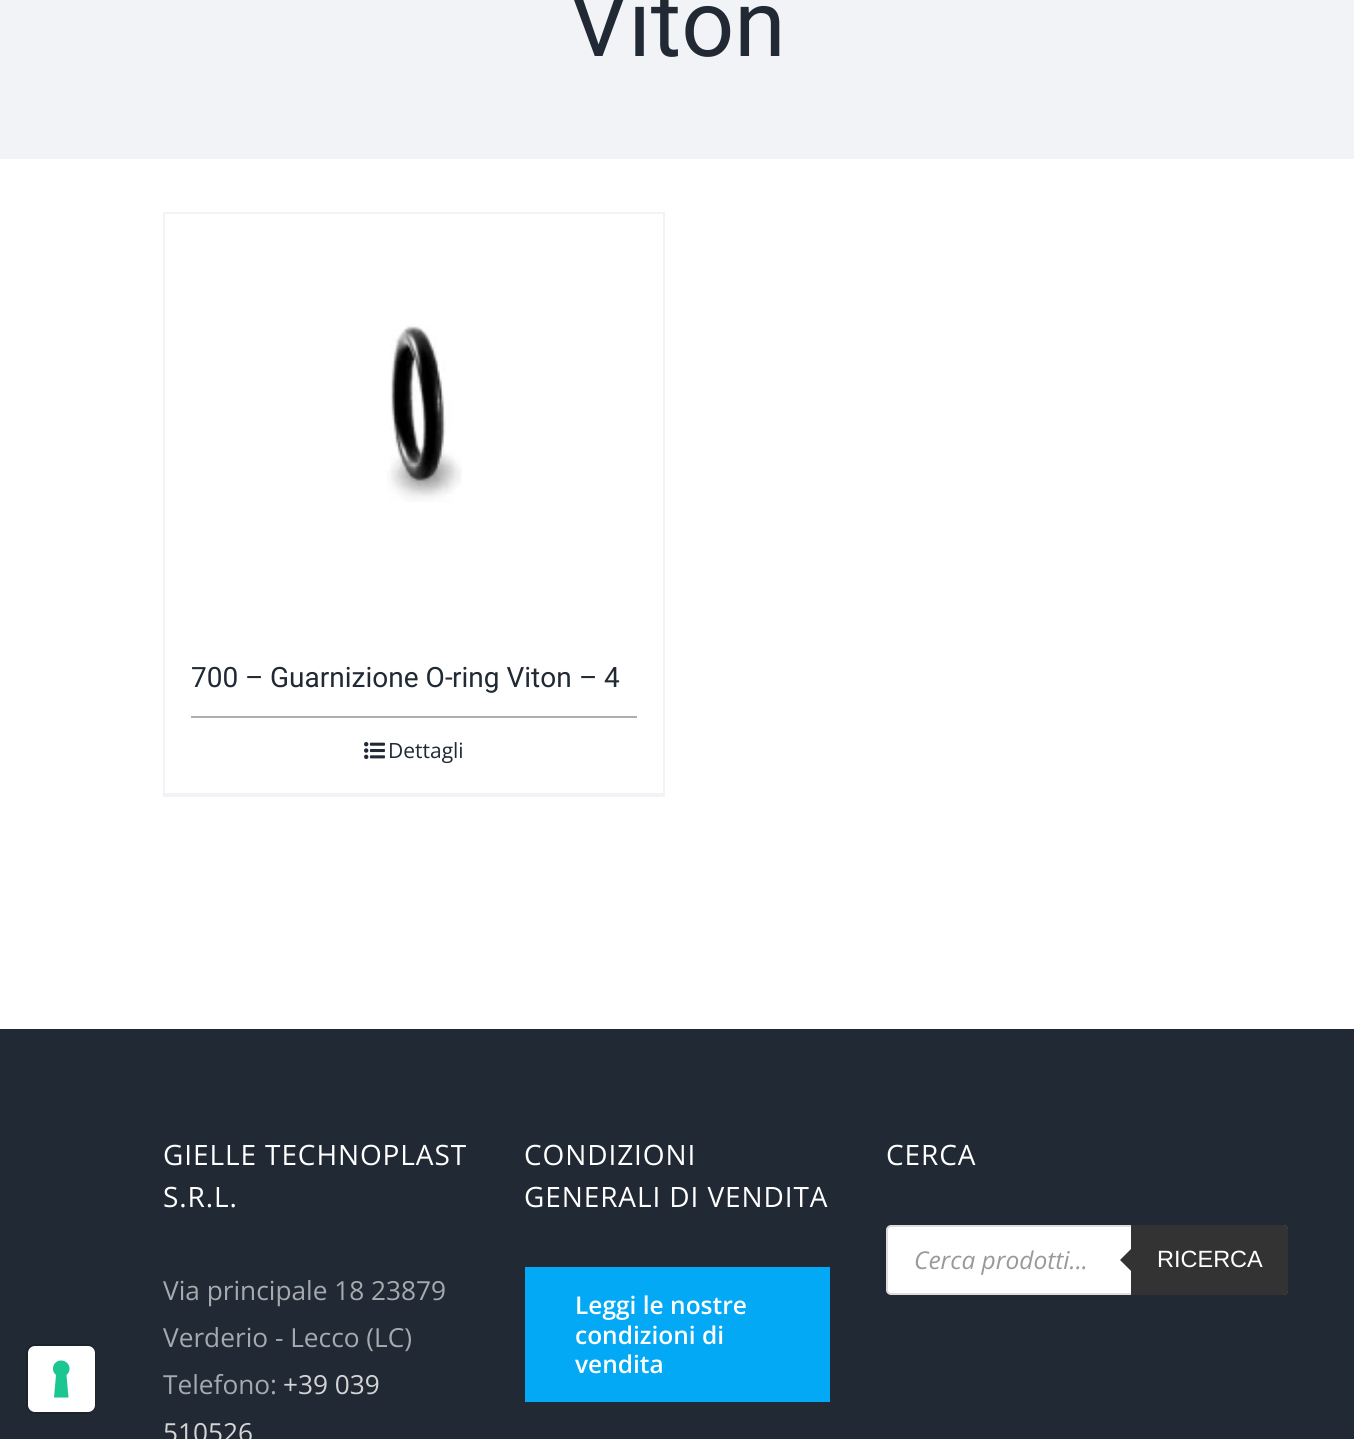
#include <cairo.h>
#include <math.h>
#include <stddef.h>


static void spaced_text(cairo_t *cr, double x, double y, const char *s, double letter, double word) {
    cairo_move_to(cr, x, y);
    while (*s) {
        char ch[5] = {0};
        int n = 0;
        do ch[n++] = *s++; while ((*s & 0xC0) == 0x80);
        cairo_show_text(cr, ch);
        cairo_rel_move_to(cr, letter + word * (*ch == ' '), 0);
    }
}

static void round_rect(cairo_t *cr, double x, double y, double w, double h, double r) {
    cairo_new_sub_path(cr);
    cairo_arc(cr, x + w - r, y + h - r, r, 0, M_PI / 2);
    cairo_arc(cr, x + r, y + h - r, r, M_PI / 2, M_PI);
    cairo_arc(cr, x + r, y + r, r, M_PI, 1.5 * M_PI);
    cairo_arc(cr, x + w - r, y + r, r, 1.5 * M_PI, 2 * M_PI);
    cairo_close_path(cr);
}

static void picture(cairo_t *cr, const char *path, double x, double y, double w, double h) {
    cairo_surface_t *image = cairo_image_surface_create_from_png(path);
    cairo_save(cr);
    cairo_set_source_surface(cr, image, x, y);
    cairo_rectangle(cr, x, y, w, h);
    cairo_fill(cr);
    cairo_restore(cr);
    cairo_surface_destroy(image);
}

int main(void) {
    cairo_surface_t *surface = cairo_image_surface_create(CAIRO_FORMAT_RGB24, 1354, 1439);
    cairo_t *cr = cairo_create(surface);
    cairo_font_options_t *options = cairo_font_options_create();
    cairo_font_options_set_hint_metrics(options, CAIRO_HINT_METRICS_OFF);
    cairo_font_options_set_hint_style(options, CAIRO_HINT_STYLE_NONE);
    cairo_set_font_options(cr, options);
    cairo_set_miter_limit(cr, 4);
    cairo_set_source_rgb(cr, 1, 1, 1);
    cairo_paint(cr);
    cairo_set_source_rgb(cr, 0.129, 0.161, 0.204);
    cairo_rectangle(cr, 0, 1029, 1354, 410);
    cairo_fill(cr);
    round_rect(cr, 27, 1345, 68, 68, 8);
    cairo_set_source_rgb(cr, 0.11, 0.137, 0.173);
    cairo_stroke(cr);
    cairo_set_source_rgb(cr, 1, 1, 1);
    round_rect(cr, 28, 1346, 67, 66, 7);
    cairo_fill(cr);
    cairo_set_source_rgb(cr, 0.11, 0.776, 0.569);
    cairo_set_fill_rule(cr, CAIRO_FILL_RULE_EVEN_ODD);
    cairo_new_path(cr);
    cairo_move_to(cr, 61, 1360.5);
    cairo_curve_to(cr, 69, 1360.5, 72.5, 1370, 66.5, 1375);
    cairo_line_to(cr, 68.5, 1397.5);
    cairo_line_to(cr, 54, 1397.5);
    cairo_line_to(cr, 56, 1375);
    cairo_curve_to(cr, 50, 1370, 53.5, 1360.5, 61, 1360.5);
    cairo_close_path(cr);
    cairo_fill(cr);
    cairo_set_source_rgb(cr, 0.949, 0.953, 0.961);
    cairo_rectangle(cr, 0, 0, 1354, 159);
    cairo_fill(cr);
    cairo_select_font_face(cr, "Roboto", CAIRO_FONT_SLANT_NORMAL, CAIRO_FONT_WEIGHT_NORMAL);
    cairo_set_font_size(cr, 93);
    cairo_set_source_rgb(cr, 0.129, 0.161, 0.204);
    cairo_move_to(cr, 569, 56);
    cairo_show_text(cr, "Viton");
    cairo_set_source_rgb(cr, 0.949, 0.953, 0.961);
    cairo_rectangle(cr, 163, 212, 502, 2);
    cairo_fill(cr);
    cairo_rectangle(cr, 663, 212, 2, 584);
    cairo_fill(cr);
    cairo_rectangle(cr, 163, 793, 502, 4);
    cairo_fill(cr);
    cairo_rectangle(cr, 163, 212, 2, 584);
    cairo_fill(cr);
    picture(cr, "img1.png", 387, 324, 75, 178);
    cairo_set_font_size(cr, 28);
    cairo_set_source_rgb(cr, 0.129, 0.161, 0.204);
    cairo_move_to(cr, 191, 687);
    cairo_show_text(cr, "700");
    cairo_select_font_face(cr, "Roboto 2", CAIRO_FONT_SLANT_NORMAL, CAIRO_FONT_WEIGHT_NORMAL);
    cairo_move_to(cr, 245, 687);
    cairo_show_text(cr, "–");
    cairo_select_font_face(cr, "Roboto", CAIRO_FONT_SLANT_NORMAL, CAIRO_FONT_WEIGHT_NORMAL);
    cairo_move_to(cr, 270, 687);
    cairo_show_text(cr, "Guarnizione O");
    cairo_select_font_face(cr, "Roboto 2", CAIRO_FONT_SLANT_NORMAL, CAIRO_FONT_WEIGHT_NORMAL);
    cairo_move_to(cr, 445, 687);
    cairo_show_text(cr, "-");
    cairo_select_font_face(cr, "Roboto", CAIRO_FONT_SLANT_NORMAL, CAIRO_FONT_WEIGHT_NORMAL);
    cairo_move_to(cr, 452, 687);
    cairo_show_text(cr, "ring Viton");
    cairo_select_font_face(cr, "Roboto 2", CAIRO_FONT_SLANT_NORMAL, CAIRO_FONT_WEIGHT_NORMAL);
    cairo_move_to(cr, 579, 687);
    cairo_show_text(cr, "–");
    cairo_select_font_face(cr, "Roboto", CAIRO_FONT_SLANT_NORMAL, CAIRO_FONT_WEIGHT_NORMAL);
    cairo_move_to(cr, 604, 687);
    cairo_show_text(cr, "4");
    cairo_set_source_rgb(cr, 0.682, 0.682, 0.682);
    cairo_rectangle(cr, 191, 716, 446, 2);
    cairo_fill(cr);
    picture(cr, "img2.png", 364, 742, 21, 18);
    cairo_select_font_face(cr, "Open Sans", CAIRO_FONT_SLANT_NORMAL, CAIRO_FONT_WEIGHT_NORMAL);
    cairo_set_font_size(cr, 21);
    cairo_set_source_rgb(cr, 0.129, 0.161, 0.204);
    cairo_move_to(cr, 388, 758);
    cairo_show_text(cr, "Dettagli");
    cairo_set_font_size(cr, 28);
    cairo_set_source_rgb(cr, 1, 1, 1);
    spaced_text(cr, 163, 1165, "GIELLE TECHNOPLAST", 0.9, 0);
    spaced_text(cr, 163, 1207, "S.R.L.", 0.9, 0);
    cairo_set_font_size(cr, 26.25);
    cairo_set_source_rgb(cr, 0.651, 0.663, 0.682);
    cairo_move_to(cr, 163, 1300);
    cairo_show_text(cr, "Via principale 18 23879");
    cairo_move_to(cr, 163, 1347);
    cairo_show_text(cr, "Verderio - Lecco (LC)");
    cairo_move_to(cr, 163, 1394);
    cairo_show_text(cr, "Telefono:");
    cairo_set_source_rgb(cr, 0.827, 0.831, 0.839);
    cairo_move_to(cr, 283, 1394);
    cairo_show_text(cr, "+39 039");
    cairo_move_to(cr, 163, 1442);
    cairo_show_text(cr, "510526");
    cairo_set_font_size(cr, 28);
    cairo_set_source_rgb(cr, 1, 1, 1);
    spaced_text(cr, 524, 1165, "CONDIZIONI", 0.9, 0);
    spaced_text(cr, 524, 1207, "GENERALI DI VENDITA", 0.9, 0);
    cairo_set_source_rgb(cr, 0.012, 0.663, 0.957);
    cairo_rectangle(cr, 525, 1267, 305, 135);
    cairo_fill(cr);
    cairo_select_font_face(cr, "Open Sans SemiBold", CAIRO_FONT_SLANT_NORMAL, CAIRO_FONT_WEIGHT_NORMAL);
    cairo_set_font_size(cr, 24.5);
    cairo_set_source_rgb(cr, 1, 1, 1);
    cairo_move_to(cr, 575, 1314);
    cairo_show_text(cr, "Leggi le nostre");
    cairo_move_to(cr, 575, 1344);
    cairo_show_text(cr, "condizioni di");
    cairo_move_to(cr, 575, 1373);
    cairo_show_text(cr, "vendita");
    cairo_select_font_face(cr, "Open Sans", CAIRO_FONT_SLANT_NORMAL, CAIRO_FONT_WEIGHT_NORMAL);
    cairo_set_font_size(cr, 28);
    spaced_text(cr, 886, 1165, "CERCA", 0.9, 0);
    round_rect(cr, 887, 1226, 400, 68, 4);
    cairo_fill_preserve(cr);
    cairo_set_source_rgb(cr, 0.867, 0.867, 0.867);
    cairo_stroke(cr);
    cairo_select_font_face(cr, "Open Sans", CAIRO_FONT_SLANT_ITALIC, CAIRO_FONT_WEIGHT_NORMAL);
    cairo_set_font_size(cr, 24.5);
    cairo_set_source_rgb(cr, 0.6, 0.6, 0.6);
    cairo_move_to(cr, 914, 1269);
    cairo_show_text(cr, "Cerca prodotti...");
    cairo_set_source_rgb(cr, 0.2, 0.2, 0.2);
    cairo_new_path(cr);
    cairo_move_to(cr, 1131, 1225);
    cairo_line_to(cr, 1284, 1225);
    cairo_curve_to(cr, 1286, 1225, 1288, 1227, 1288, 1229);
    cairo_line_to(cr, 1288, 1291);
    cairo_curve_to(cr, 1288, 1293, 1286, 1295, 1284, 1295);
    cairo_line_to(cr, 1131, 1295);
    cairo_close_path(cr);
    cairo_fill(cr);
    cairo_set_fill_rule(cr, CAIRO_FILL_RULE_WINDING);
    cairo_new_path(cr);
    cairo_move_to(cr, 1134, 1246);
    cairo_line_to(cr, 1134, 1274);
    cairo_line_to(cr, 1120, 1260);
    cairo_close_path(cr);
    cairo_fill(cr);
    cairo_select_font_face(cr, "Liberation Sans", CAIRO_FONT_SLANT_NORMAL, CAIRO_FONT_WEIGHT_NORMAL);
    cairo_set_font_size(cr, 23.5);
    cairo_set_source_rgb(cr, 1, 1, 1);
    cairo_move_to(cr, 1157, 1267);
    cairo_show_text(cr, "RICERCA");
    cairo_surface_write_to_png(surface, "page.png");
    cairo_font_options_destroy(options);
    cairo_destroy(cr);
    cairo_surface_destroy(surface);
    return 0;
}
